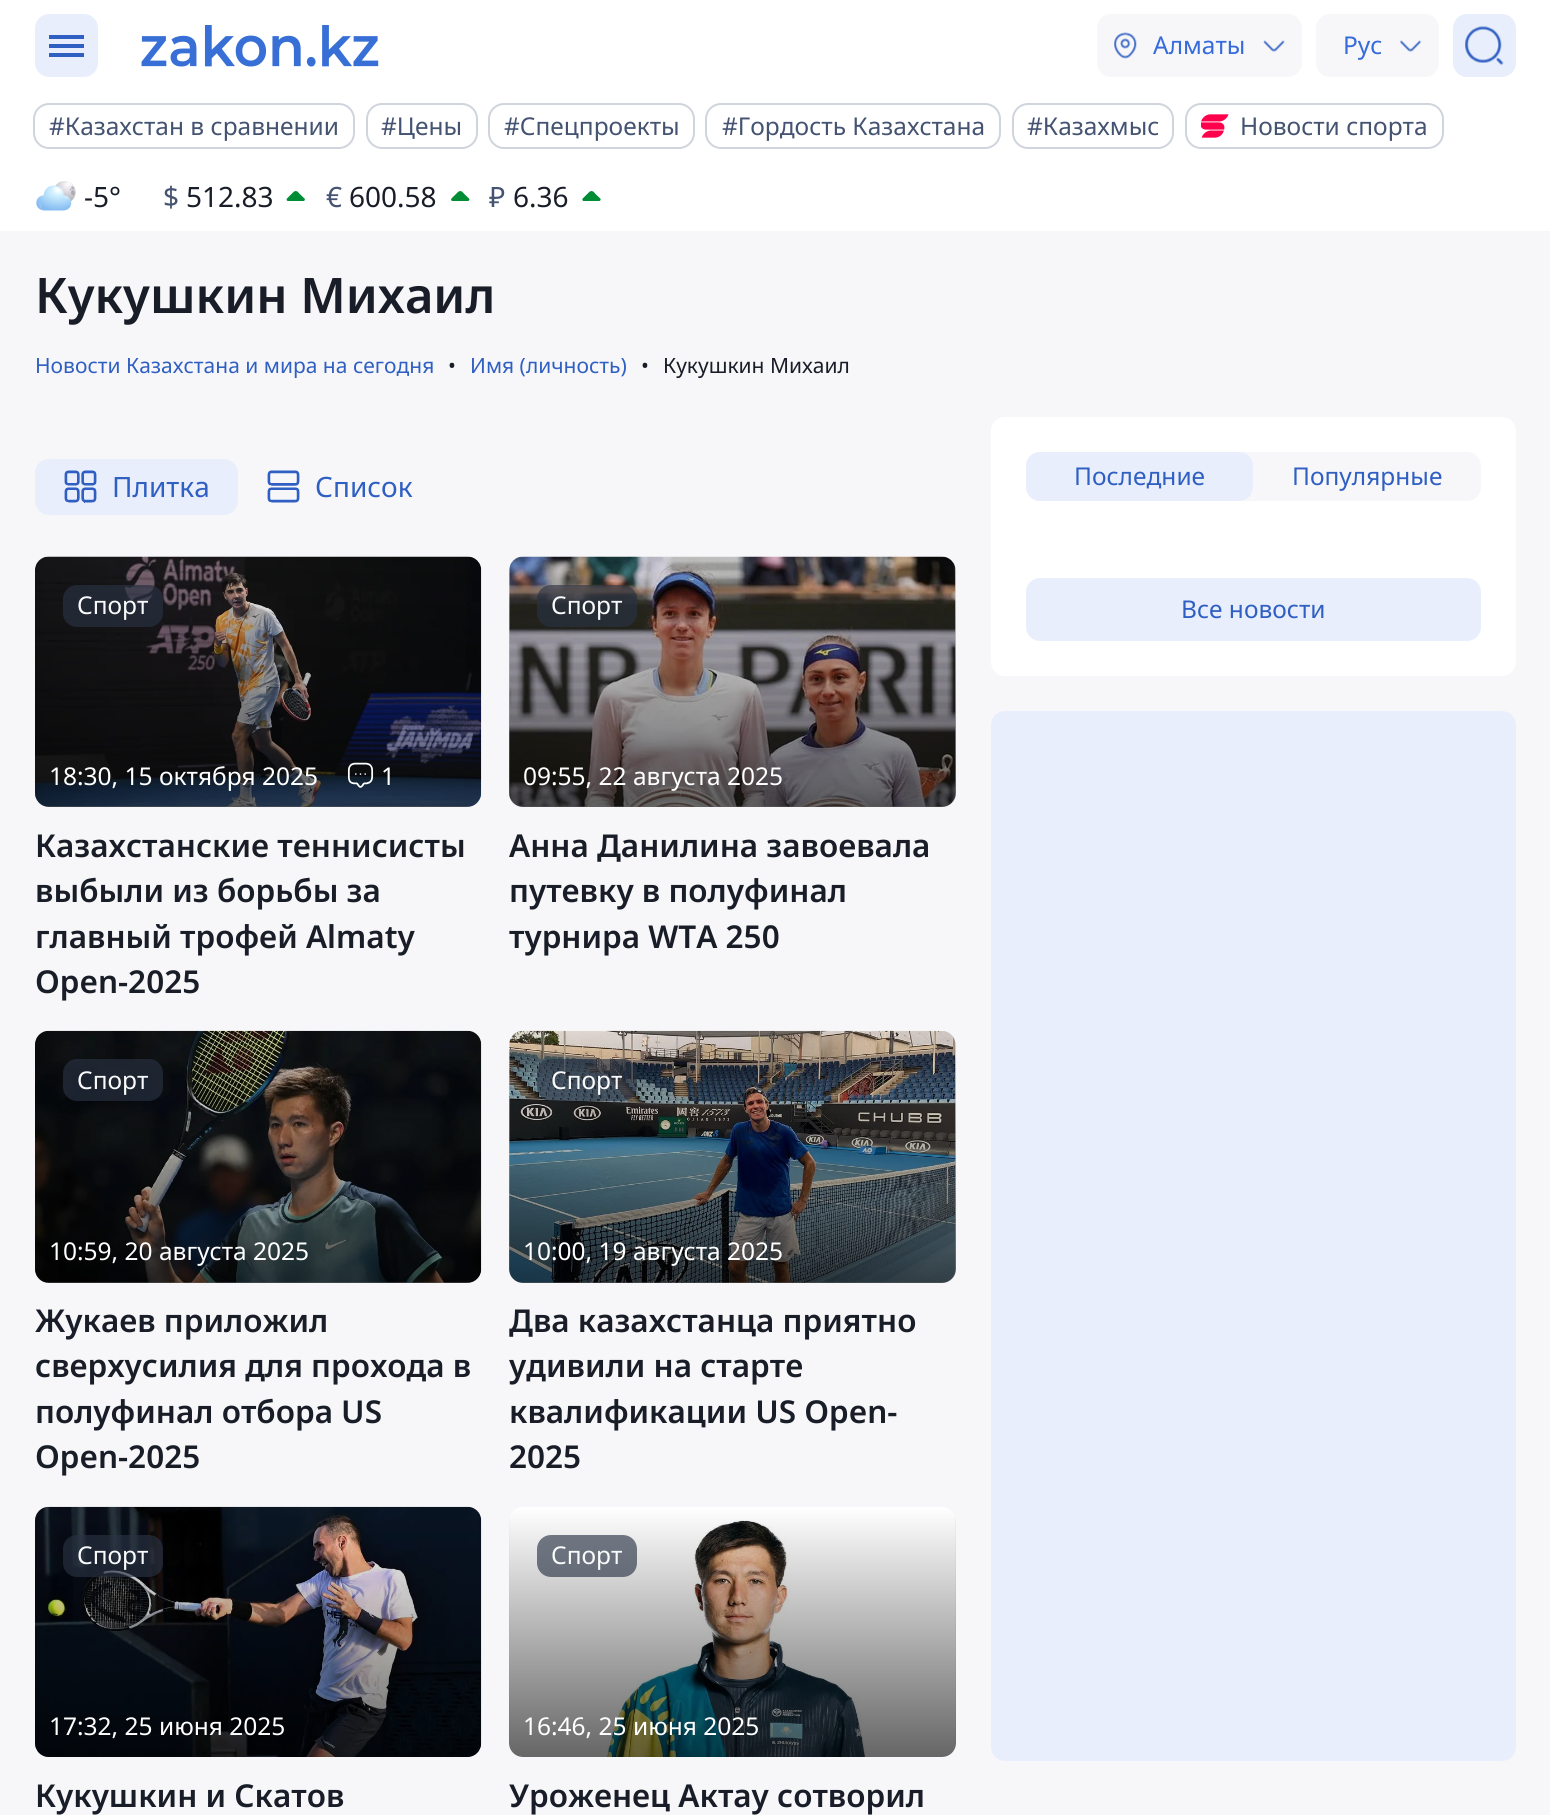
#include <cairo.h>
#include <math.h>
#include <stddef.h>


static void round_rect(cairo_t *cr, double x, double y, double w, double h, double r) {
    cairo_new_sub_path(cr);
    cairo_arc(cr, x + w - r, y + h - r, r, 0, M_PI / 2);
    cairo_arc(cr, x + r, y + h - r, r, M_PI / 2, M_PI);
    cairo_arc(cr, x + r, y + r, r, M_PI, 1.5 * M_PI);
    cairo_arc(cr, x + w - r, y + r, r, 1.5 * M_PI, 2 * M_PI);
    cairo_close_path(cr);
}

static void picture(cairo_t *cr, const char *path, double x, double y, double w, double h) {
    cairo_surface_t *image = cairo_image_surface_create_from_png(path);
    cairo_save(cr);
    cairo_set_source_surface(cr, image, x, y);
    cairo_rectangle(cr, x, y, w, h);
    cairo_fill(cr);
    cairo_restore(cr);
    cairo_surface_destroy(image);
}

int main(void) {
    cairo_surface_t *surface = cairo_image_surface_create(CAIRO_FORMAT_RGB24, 1550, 1815);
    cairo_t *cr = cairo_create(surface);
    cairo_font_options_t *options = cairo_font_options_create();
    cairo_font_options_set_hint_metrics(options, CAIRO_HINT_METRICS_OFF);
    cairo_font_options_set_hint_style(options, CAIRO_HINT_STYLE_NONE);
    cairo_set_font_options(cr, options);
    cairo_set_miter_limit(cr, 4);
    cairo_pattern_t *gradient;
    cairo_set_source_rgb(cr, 0.965, 0.965, 0.973);
    cairo_paint(cr);
    cairo_set_source_rgb(cr, 1, 1, 1);
    cairo_rectangle(cr, 0, 0, 1550, 231);
    cairo_fill(cr);
    cairo_set_source_rgb(cr, 0.91, 0.933, 0.984);
    round_rect(cr, 35, 14, 63, 63, 14);
    cairo_fill(cr);
    cairo_set_source_rgb(cr, 0.184, 0.373, 0.761);
    cairo_rectangle(cr, 49, 35, 35, 4);
    cairo_fill(cr);
    cairo_rectangle(cr, 49, 44, 35, 4);
    cairo_fill(cr);
    cairo_rectangle(cr, 49, 53, 35, 4);
    cairo_fill(cr);
    picture(cr, "img1.png", 141, 25, 238, 42);
    cairo_set_source_rgb(cr, 0.965, 0.965, 0.973);
    round_rect(cr, 1097, 14, 205, 63, 14);
    cairo_fill(cr);
    picture(cr, "img2.png", 1114, 32, 23, 27);
    cairo_select_font_face(cr, "Noto Sans", CAIRO_FONT_SLANT_NORMAL, CAIRO_FONT_WEIGHT_NORMAL);
    cairo_set_font_size(cr, 24.5);
    cairo_set_source_rgb(cr, 0.208, 0.42, 0.859);
    cairo_move_to(cr, 1153, 54);
    cairo_show_text(cr, "Алматы");
    picture(cr, "img3.png", 1263, 40, 22, 12);
    cairo_set_source_rgb(cr, 0.965, 0.965, 0.973);
    round_rect(cr, 1316, 14, 123, 63, 14);
    cairo_fill(cr);
    cairo_set_source_rgb(cr, 0.208, 0.42, 0.859);
    cairo_move_to(cr, 1343, 54);
    cairo_show_text(cr, "Рус");
    picture(cr, "img4.png", 1400, 40, 22, 12);
    cairo_set_source_rgb(cr, 0.91, 0.933, 0.984);
    round_rect(cr, 1453, 14, 63, 63, 14);
    cairo_fill(cr);
    picture(cr, "img5.png", 1465, 26, 39, 39);
    round_rect(cr, 34, 104, 320, 44, 15);
    cairo_set_source_rgb(cr, 0.816, 0.831, 0.863);
    cairo_stroke(cr);
    cairo_set_source_rgb(cr, 0.267, 0.325, 0.443);
    cairo_move_to(cr, 49, 135);
    cairo_show_text(cr, "#Казахстан в сравнении");
    round_rect(cr, 367, 104, 110, 44, 15);
    cairo_set_source_rgb(cr, 0.816, 0.831, 0.863);
    cairo_stroke(cr);
    cairo_set_source_rgb(cr, 0.267, 0.325, 0.443);
    cairo_move_to(cr, 381, 135);
    cairo_show_text(cr, "#Цены");
    round_rect(cr, 489, 104, 205, 44, 15);
    cairo_set_source_rgb(cr, 0.816, 0.831, 0.863);
    cairo_stroke(cr);
    cairo_set_source_rgb(cr, 0.267, 0.325, 0.443);
    cairo_move_to(cr, 504, 135);
    cairo_show_text(cr, "#Спецпроекты");
    round_rect(cr, 706, 104, 294, 44, 15);
    cairo_set_source_rgb(cr, 0.816, 0.831, 0.863);
    cairo_stroke(cr);
    cairo_set_source_rgb(cr, 0.267, 0.325, 0.443);
    cairo_move_to(cr, 722, 135);
    cairo_show_text(cr, "#Гордость Казахстана");
    round_rect(cr, 1013, 104, 160, 44, 15);
    cairo_set_source_rgb(cr, 0.816, 0.831, 0.863);
    cairo_stroke(cr);
    cairo_set_source_rgb(cr, 0.267, 0.325, 0.443);
    cairo_move_to(cr, 1027, 135);
    cairo_show_text(cr, "#Казахмыс");
    picture(cr, "img6.png", 1201, 114, 28, 24);
    round_rect(cr, 1186, 104, 257, 44, 15);
    cairo_set_source_rgb(cr, 0.816, 0.831, 0.863);
    cairo_stroke(cr);
    cairo_set_source_rgb(cr, 0.267, 0.325, 0.443);
    cairo_move_to(cr, 1240, 135);
    cairo_show_text(cr, "Новости спорта");
    picture(cr, "img7.png", 36, 181, 40, 30);
    cairo_set_font_size(cr, 28);
    cairo_set_source_rgb(cr, 0.094, 0.114, 0.157);
    cairo_move_to(cr, 84, 207);
    cairo_show_text(cr, "-5°");
    cairo_set_source_rgb(cr, 0.267, 0.325, 0.443);
    cairo_move_to(cr, 163, 207);
    cairo_show_text(cr, "$");
    cairo_set_source_rgb(cr, 0.094, 0.114, 0.157);
    cairo_move_to(cr, 186, 207);
    cairo_show_text(cr, "512.83");
    picture(cr, "img8.png", 286, 191, 19, 10);
    cairo_set_source_rgb(cr, 0.267, 0.325, 0.443);
    cairo_move_to(cr, 326, 207);
    cairo_show_text(cr, "€");
    cairo_set_source_rgb(cr, 0.094, 0.114, 0.157);
    cairo_move_to(cr, 349, 207);
    cairo_show_text(cr, "600.58");
    picture(cr, "img9.png", 451, 191, 19, 10);
    cairo_set_source_rgb(cr, 0.267, 0.325, 0.443);
    cairo_move_to(cr, 489, 207);
    cairo_show_text(cr, "₽");
    cairo_set_source_rgb(cr, 0.094, 0.114, 0.157);
    cairo_move_to(cr, 513, 207);
    cairo_show_text(cr, "6.36");
    picture(cr, "img10.png", 582, 191, 19, 10);
    cairo_select_font_face(cr, "Noto Sans SemiBold", CAIRO_FONT_SLANT_NORMAL, CAIRO_FONT_WEIGHT_NORMAL);
    cairo_set_font_size(cr, 49);
    cairo_move_to(cr, 35, 313);
    cairo_show_text(cr, "Кукушкин Михаил");
    cairo_select_font_face(cr, "Noto Sans", CAIRO_FONT_SLANT_NORMAL, CAIRO_FONT_WEIGHT_NORMAL);
    cairo_set_font_size(cr, 21);
    cairo_set_source_rgb(cr, 0.184, 0.373, 0.761);
    cairo_move_to(cr, 35, 373);
    cairo_show_text(cr, "Новости Казахстана и мира на сегодня");
    cairo_set_source_rgb(cr, 0.094, 0.114, 0.157);
    cairo_move_to(cr, 448, 373);
    cairo_show_text(cr, "•");
    cairo_set_source_rgb(cr, 0.184, 0.373, 0.761);
    cairo_move_to(cr, 470, 373);
    cairo_show_text(cr, "Имя (личность)");
    cairo_set_source_rgb(cr, 0.094, 0.114, 0.157);
    cairo_move_to(cr, 641, 373);
    cairo_show_text(cr, "•");
    cairo_move_to(cr, 663, 373);
    cairo_show_text(cr, "Кукушкин Михаил");
    cairo_set_source_rgb(cr, 0.91, 0.933, 0.984);
    round_rect(cr, 35, 459, 203, 56, 14);
    cairo_fill(cr);
    picture(cr, "img11.png", 64, 470, 33, 33);
    cairo_set_font_size(cr, 28);
    cairo_set_source_rgb(cr, 0.184, 0.373, 0.761);
    cairo_move_to(cr, 112, 497);
    cairo_show_text(cr, "Плитка");
    picture(cr, "img12.png", 267, 470, 33, 33);
    cairo_move_to(cr, 315, 497);
    cairo_show_text(cr, "Список");
    picture(cr, "img13.png", 35, 556, 447, 251);
    gradient = cairo_pattern_create_linear(258, 557, 258, 807);
    cairo_pattern_add_color_stop_rgba(gradient, 0, 0, 0, 0, 0);
    cairo_pattern_add_color_stop_rgba(gradient, 1, 0, 0, 0, 0.6);
    cairo_set_source(cr, gradient);
    cairo_pattern_destroy(gradient);
    round_rect(cr, 35, 557, 446, 250, 14);
    cairo_fill(cr);
    cairo_set_source_rgba(cr, 0.161, 0.196, 0.267, 0.64);
    round_rect(cr, 63, 585, 100, 42, 14);
    cairo_fill(cr);
    cairo_set_font_size(cr, 24.5);
    cairo_set_source_rgb(cr, 0.976, 0.98, 0.984);
    cairo_move_to(cr, 77, 614);
    cairo_show_text(cr, "Спорт");
    cairo_set_source_rgb(cr, 1, 1, 1);
    cairo_move_to(cr, 49, 785);
    cairo_show_text(cr, "18:30, 15 октября 2025");
    picture(cr, "img14.png", 347, 762, 27, 26);
    cairo_move_to(cr, 381, 785);
    cairo_show_text(cr, "1");
    cairo_select_font_face(cr, "Noto Sans SemiBold", CAIRO_FONT_SLANT_NORMAL, CAIRO_FONT_WEIGHT_NORMAL);
    cairo_set_font_size(cr, 31.5);
    cairo_set_source_rgb(cr, 0.094, 0.114, 0.157);
    cairo_move_to(cr, 35, 857);
    cairo_show_text(cr, "Казахстанские теннисисты");
    cairo_move_to(cr, 35, 902);
    cairo_show_text(cr, "выбыли из борьбы за");
    cairo_move_to(cr, 35, 948);
    cairo_show_text(cr, "главный трофей Almaty");
    cairo_move_to(cr, 35, 993);
    cairo_show_text(cr, "Open-2025");
    picture(cr, "img15.png", 509, 556, 447, 251);
    gradient = cairo_pattern_create_linear(732, 557, 732, 807);
    cairo_pattern_add_color_stop_rgba(gradient, 0, 0, 0, 0, 0);
    cairo_pattern_add_color_stop_rgba(gradient, 1, 0, 0, 0, 0.6);
    cairo_set_source(cr, gradient);
    cairo_pattern_destroy(gradient);
    round_rect(cr, 509, 557, 447, 250, 14);
    cairo_fill(cr);
    cairo_set_source_rgba(cr, 0.161, 0.196, 0.267, 0.64);
    round_rect(cr, 537, 585, 100, 42, 14);
    cairo_fill(cr);
    cairo_select_font_face(cr, "Noto Sans", CAIRO_FONT_SLANT_NORMAL, CAIRO_FONT_WEIGHT_NORMAL);
    cairo_set_font_size(cr, 24.5);
    cairo_set_source_rgb(cr, 0.976, 0.98, 0.984);
    cairo_move_to(cr, 551, 614);
    cairo_show_text(cr, "Спорт");
    cairo_set_source_rgb(cr, 1, 1, 1);
    cairo_move_to(cr, 523, 785);
    cairo_show_text(cr, "09:55, 22 августа 2025");
    cairo_select_font_face(cr, "Noto Sans SemiBold", CAIRO_FONT_SLANT_NORMAL, CAIRO_FONT_WEIGHT_NORMAL);
    cairo_set_font_size(cr, 31.5);
    cairo_set_source_rgb(cr, 0.094, 0.114, 0.157);
    cairo_move_to(cr, 509, 857);
    cairo_show_text(cr, "Анна Данилина завоевала");
    cairo_move_to(cr, 509, 902);
    cairo_show_text(cr, "путевку в полуфинал");
    cairo_move_to(cr, 509, 948);
    cairo_show_text(cr, "турнира WTA 250");
    picture(cr, "img16.png", 35, 1030, 447, 253);
    gradient = cairo_pattern_create_linear(258, 1031, 258, 1283);
    cairo_pattern_add_color_stop_rgba(gradient, 0, 0, 0, 0, 0);
    cairo_pattern_add_color_stop_rgba(gradient, 1, 0, 0, 0, 0.6);
    cairo_set_source(cr, gradient);
    cairo_pattern_destroy(gradient);
    round_rect(cr, 35, 1031, 446, 252, 14);
    cairo_fill(cr);
    cairo_set_source_rgba(cr, 0.161, 0.196, 0.267, 0.64);
    round_rect(cr, 63, 1059, 100, 42, 14);
    cairo_fill(cr);
    cairo_select_font_face(cr, "Noto Sans", CAIRO_FONT_SLANT_NORMAL, CAIRO_FONT_WEIGHT_NORMAL);
    cairo_set_font_size(cr, 24.5);
    cairo_set_source_rgb(cr, 0.976, 0.98, 0.984);
    cairo_move_to(cr, 77, 1089);
    cairo_show_text(cr, "Спорт");
    cairo_set_source_rgb(cr, 1, 1, 1);
    cairo_move_to(cr, 49, 1260);
    cairo_show_text(cr, "10:59, 20 августа 2025");
    cairo_select_font_face(cr, "Noto Sans SemiBold", CAIRO_FONT_SLANT_NORMAL, CAIRO_FONT_WEIGHT_NORMAL);
    cairo_set_font_size(cr, 31.5);
    cairo_set_source_rgb(cr, 0.094, 0.114, 0.157);
    cairo_move_to(cr, 35, 1332);
    cairo_show_text(cr, "Жукаев приложил");
    cairo_move_to(cr, 35, 1377);
    cairo_show_text(cr, "сверхусилия для прохода в");
    cairo_move_to(cr, 35, 1423);
    cairo_show_text(cr, "полуфинал отбора US");
    cairo_move_to(cr, 35, 1468);
    cairo_show_text(cr, "Open-2025");
    picture(cr, "img17.png", 509, 1030, 447, 253);
    gradient = cairo_pattern_create_linear(732, 1031, 732, 1283);
    cairo_pattern_add_color_stop_rgba(gradient, 0, 0, 0, 0, 0);
    cairo_pattern_add_color_stop_rgba(gradient, 1, 0, 0, 0, 0.6);
    cairo_set_source(cr, gradient);
    cairo_pattern_destroy(gradient);
    round_rect(cr, 509, 1031, 447, 252, 14);
    cairo_fill(cr);
    cairo_set_source_rgba(cr, 0.161, 0.196, 0.267, 0.64);
    round_rect(cr, 537, 1059, 100, 42, 14);
    cairo_fill(cr);
    cairo_select_font_face(cr, "Noto Sans", CAIRO_FONT_SLANT_NORMAL, CAIRO_FONT_WEIGHT_NORMAL);
    cairo_set_font_size(cr, 24.5);
    cairo_set_source_rgb(cr, 0.976, 0.98, 0.984);
    cairo_move_to(cr, 551, 1089);
    cairo_show_text(cr, "Спорт");
    cairo_set_source_rgb(cr, 1, 1, 1);
    cairo_move_to(cr, 523, 1260);
    cairo_show_text(cr, "10:00, 19 августа 2025");
    cairo_select_font_face(cr, "Noto Sans SemiBold", CAIRO_FONT_SLANT_NORMAL, CAIRO_FONT_WEIGHT_NORMAL);
    cairo_set_font_size(cr, 31.5);
    cairo_set_source_rgb(cr, 0.094, 0.114, 0.157);
    cairo_move_to(cr, 509, 1332);
    cairo_show_text(cr, "Два казахстанца приятно");
    cairo_move_to(cr, 509, 1377);
    cairo_show_text(cr, "удивили на старте");
    cairo_move_to(cr, 509, 1423);
    cairo_show_text(cr, "квалификации US Open-");
    cairo_move_to(cr, 509, 1468);
    cairo_show_text(cr, "2025");
    picture(cr, "img18.png", 35, 1506, 447, 251);
    gradient = cairo_pattern_create_linear(258, 1507, 258, 1757);
    cairo_pattern_add_color_stop_rgba(gradient, 0, 0, 0, 0, 0);
    cairo_pattern_add_color_stop_rgba(gradient, 1, 0, 0, 0, 0.6);
    cairo_set_source(cr, gradient);
    cairo_pattern_destroy(gradient);
    round_rect(cr, 35, 1507, 446, 250, 14);
    cairo_fill(cr);
    cairo_set_source_rgba(cr, 0.161, 0.196, 0.267, 0.64);
    round_rect(cr, 63, 1535, 100, 42, 14);
    cairo_fill(cr);
    cairo_select_font_face(cr, "Noto Sans", CAIRO_FONT_SLANT_NORMAL, CAIRO_FONT_WEIGHT_NORMAL);
    cairo_set_font_size(cr, 24.5);
    cairo_set_source_rgb(cr, 0.976, 0.98, 0.984);
    cairo_move_to(cr, 77, 1564);
    cairo_show_text(cr, "Спорт");
    cairo_set_source_rgb(cr, 1, 1, 1);
    cairo_move_to(cr, 49, 1735);
    cairo_show_text(cr, "17:32, 25 июня 2025");
    cairo_select_font_face(cr, "Noto Sans SemiBold", CAIRO_FONT_SLANT_NORMAL, CAIRO_FONT_WEIGHT_NORMAL);
    cairo_set_font_size(cr, 31.5);
    cairo_set_source_rgb(cr, 0.094, 0.114, 0.157);
    cairo_move_to(cr, 35, 1807);
    cairo_show_text(cr, "Кукушкин и Скатов");
    picture(cr, "img19.png", 509, 1507, 446, 250);
    gradient = cairo_pattern_create_linear(732, 1507, 732, 1757);
    cairo_pattern_add_color_stop_rgba(gradient, 0, 0, 0, 0, 0);
    cairo_pattern_add_color_stop_rgba(gradient, 1, 0, 0, 0, 0.6);
    cairo_set_source(cr, gradient);
    cairo_pattern_destroy(gradient);
    round_rect(cr, 509, 1507, 447, 250, 14);
    cairo_fill(cr);
    cairo_set_source_rgba(cr, 0.161, 0.196, 0.267, 0.64);
    round_rect(cr, 537, 1535, 100, 42, 14);
    cairo_fill(cr);
    cairo_select_font_face(cr, "Noto Sans", CAIRO_FONT_SLANT_NORMAL, CAIRO_FONT_WEIGHT_NORMAL);
    cairo_set_font_size(cr, 24.5);
    cairo_set_source_rgb(cr, 0.976, 0.98, 0.984);
    cairo_move_to(cr, 551, 1564);
    cairo_show_text(cr, "Спорт");
    cairo_set_source_rgb(cr, 1, 1, 1);
    cairo_move_to(cr, 523, 1735);
    cairo_show_text(cr, "16:46, 25 июня 2025");
    cairo_select_font_face(cr, "Noto Sans SemiBold", CAIRO_FONT_SLANT_NORMAL, CAIRO_FONT_WEIGHT_NORMAL);
    cairo_set_font_size(cr, 31.5);
    cairo_set_source_rgb(cr, 0.094, 0.114, 0.157);
    cairo_move_to(cr, 509, 1807);
    cairo_show_text(cr, "Уроженец Актау сотворил");
    cairo_set_source_rgb(cr, 1, 1, 1);
    round_rect(cr, 991, 417, 525, 259, 14);
    cairo_fill(cr);
    cairo_set_source_rgb(cr, 0.965, 0.965, 0.973);
    round_rect(cr, 1026, 452, 455, 49, 14);
    cairo_fill(cr);
    cairo_set_source_rgb(cr, 0.91, 0.933, 0.984);
    round_rect(cr, 1026, 452, 227, 49, 14);
    cairo_fill(cr);
    cairo_select_font_face(cr, "Noto Sans", CAIRO_FONT_SLANT_NORMAL, CAIRO_FONT_WEIGHT_NORMAL);
    cairo_set_font_size(cr, 24.5);
    cairo_set_source_rgb(cr, 0.184, 0.373, 0.761);
    cairo_move_to(cr, 1074, 485);
    cairo_show_text(cr, "Последние");
    cairo_move_to(cr, 1292, 485);
    cairo_show_text(cr, "Популярные");
    cairo_set_source_rgb(cr, 0.91, 0.933, 0.984);
    round_rect(cr, 1026, 578, 455, 63, 14);
    cairo_fill(cr);
    cairo_set_source_rgb(cr, 0.184, 0.373, 0.761);
    cairo_move_to(cr, 1181, 618);
    cairo_show_text(cr, "Все новости");
    cairo_set_source_rgb(cr, 0.91, 0.933, 0.984);
    round_rect(cr, 991, 711, 525, 1050, 14);
    cairo_fill(cr);
    cairo_surface_write_to_png(surface, "page.png");
    cairo_font_options_destroy(options);
    cairo_destroy(cr);
    cairo_surface_destroy(surface);
    return 0;
}
